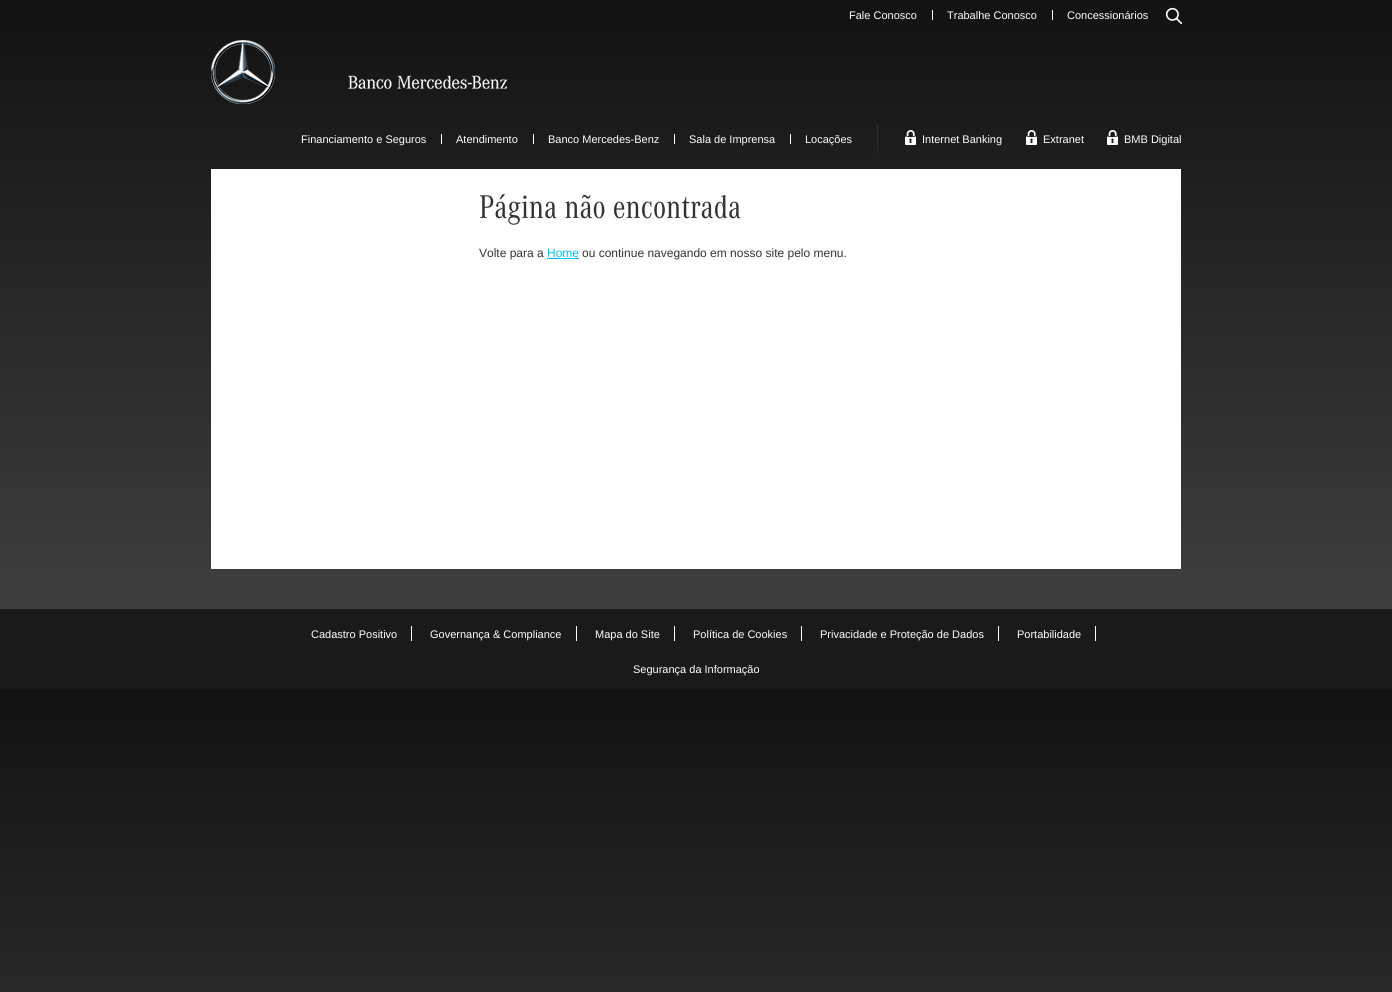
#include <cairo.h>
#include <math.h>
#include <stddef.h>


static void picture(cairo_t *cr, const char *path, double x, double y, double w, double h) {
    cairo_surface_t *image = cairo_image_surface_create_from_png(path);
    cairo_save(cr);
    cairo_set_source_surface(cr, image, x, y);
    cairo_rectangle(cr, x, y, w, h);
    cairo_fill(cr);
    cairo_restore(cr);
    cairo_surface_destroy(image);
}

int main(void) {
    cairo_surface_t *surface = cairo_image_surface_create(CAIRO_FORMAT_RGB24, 1392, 992);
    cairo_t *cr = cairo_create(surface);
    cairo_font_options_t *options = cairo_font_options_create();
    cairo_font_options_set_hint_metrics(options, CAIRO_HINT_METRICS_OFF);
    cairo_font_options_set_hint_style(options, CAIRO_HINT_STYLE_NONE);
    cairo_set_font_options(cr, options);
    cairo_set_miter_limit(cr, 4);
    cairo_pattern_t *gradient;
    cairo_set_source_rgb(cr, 1, 1, 1);
    cairo_paint(cr);
    gradient = cairo_pattern_create_linear(696, 0, 696, 689);
    cairo_pattern_add_color_stop_rgba(gradient, 0, 0.071, 0.071, 0.071, 1);
    cairo_pattern_add_color_stop_rgba(gradient, 1, 0.267, 0.267, 0.267, 1);
    cairo_set_source(cr, gradient);
    cairo_pattern_destroy(gradient);
    cairo_rectangle(cr, 0, 0, 1392, 609);
    cairo_fill(cr);
    gradient = cairo_pattern_create_linear(696, 689, 696, 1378);
    cairo_pattern_add_color_stop_rgba(gradient, 0, 0.071, 0.071, 0.071, 1);
    cairo_pattern_add_color_stop_rgba(gradient, 1, 0.267, 0.267, 0.267, 1);
    cairo_set_source(cr, gradient);
    cairo_pattern_destroy(gradient);
    cairo_rectangle(cr, 0, 689, 1392, 303);
    cairo_fill(cr);
    cairo_select_font_face(cr, "Liberation Sans", CAIRO_FONT_SLANT_NORMAL, CAIRO_FONT_WEIGHT_NORMAL);
    cairo_set_font_size(cr, 11);
    cairo_set_source_rgb(cr, 1, 1, 1);
    cairo_move_to(cr, 849, 19);
    cairo_show_text(cr, "Fale Conosco");
    cairo_rectangle(cr, 932, 10, 1, 10);
    cairo_fill(cr);
    cairo_move_to(cr, 947, 19);
    cairo_show_text(cr, "Trabalhe Conosco");
    cairo_rectangle(cr, 1052, 10, 1, 10);
    cairo_fill(cr);
    cairo_move_to(cr, 1067, 19);
    cairo_show_text(cr, "Concessionários");
    picture(cr, "img1.png", 1165, 7, 18, 18);
    picture(cr, "img2.png", 211, 40, 296, 64);
    cairo_move_to(cr, 301, 143);
    cairo_show_text(cr, "Financiamento e Seguros");
    cairo_rectangle(cr, 441, 134, 1, 10);
    cairo_fill(cr);
    cairo_move_to(cr, 456, 143);
    cairo_show_text(cr, "Atendimento");
    cairo_rectangle(cr, 533, 134, 1, 10);
    cairo_fill(cr);
    cairo_move_to(cr, 548, 143);
    cairo_show_text(cr, "Banco Mercedes-Benz");
    cairo_rectangle(cr, 674, 134, 1, 10);
    cairo_fill(cr);
    cairo_move_to(cr, 689, 143);
    cairo_show_text(cr, "Sala de Imprensa");
    cairo_rectangle(cr, 790, 134, 1, 10);
    cairo_fill(cr);
    cairo_move_to(cr, 805, 143);
    cairo_show_text(cr, "Locações");
    cairo_set_source_rgb(cr, 0.173, 0.176, 0.192);
    cairo_rectangle(cr, 877, 124, 1, 30);
    cairo_fill(cr);
    picture(cr, "img3.png", 905, 130, 11, 15);
    cairo_set_source_rgb(cr, 1, 1, 1);
    cairo_move_to(cr, 922, 143);
    cairo_show_text(cr, "Internet Banking");
    picture(cr, "img3.png", 1026, 130, 11, 15);
    cairo_move_to(cr, 1043, 143);
    cairo_show_text(cr, "Extranet");
    picture(cr, "img3.png", 1107, 130, 11, 15);
    cairo_move_to(cr, 1124, 143);
    cairo_show_text(cr, "BMB Digital");
    cairo_rectangle(cr, 211, 169, 970, 400);
    cairo_fill(cr);
    cairo_select_font_face(cr, "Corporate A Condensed", CAIRO_FONT_SLANT_NORMAL, CAIRO_FONT_WEIGHT_NORMAL);
    cairo_set_font_size(cr, 34);
    cairo_set_source_rgb(cr, 0.2, 0.2, 0.2);
    cairo_move_to(cr, 479, 218);
    cairo_show_text(cr, "Página não encontrada");
    cairo_select_font_face(cr, "Liberation Sans", CAIRO_FONT_SLANT_NORMAL, CAIRO_FONT_WEIGHT_NORMAL);
    cairo_set_font_size(cr, 12);
    cairo_move_to(cr, 479, 257);
    cairo_show_text(cr, "Volte para a");
    cairo_set_source_rgb(cr, 0, 0.753, 0.957);
    cairo_move_to(cr, 547, 257);
    cairo_show_text(cr, "Home");
    cairo_rectangle(cr, 547, 258, 32, 1);
    cairo_fill(cr);
    cairo_set_source_rgb(cr, 0.2, 0.2, 0.2);
    cairo_move_to(cr, 582, 257);
    cairo_show_text(cr, "ou continue navegando em nosso site pelo menu.");
    cairo_set_source_rgb(cr, 0.102, 0.102, 0.102);
    cairo_rectangle(cr, 0, 609, 1392, 80);
    cairo_fill(cr);
    cairo_set_font_size(cr, 11);
    cairo_set_source_rgb(cr, 1, 1, 1);
    cairo_move_to(cr, 311, 638);
    cairo_show_text(cr, "Cadastro Positivo");
    cairo_rectangle(cr, 411, 626, 1, 15);
    cairo_fill(cr);
    cairo_move_to(cr, 430, 638);
    cairo_show_text(cr, "Governança & Compliance");
    cairo_rectangle(cr, 576, 626, 1, 15);
    cairo_fill(cr);
    cairo_move_to(cr, 595, 638);
    cairo_show_text(cr, "Mapa do Site");
    cairo_rectangle(cr, 674, 626, 1, 15);
    cairo_fill(cr);
    cairo_move_to(cr, 693, 638);
    cairo_show_text(cr, "Política de Cookies");
    cairo_rectangle(cr, 801, 626, 1, 15);
    cairo_fill(cr);
    cairo_move_to(cr, 820, 638);
    cairo_show_text(cr, "Privacidade e Proteção de Dados");
    cairo_rectangle(cr, 998, 626, 1, 15);
    cairo_fill(cr);
    cairo_move_to(cr, 1017, 638);
    cairo_show_text(cr, "Portabilidade");
    cairo_rectangle(cr, 1095, 626, 1, 15);
    cairo_fill(cr);
    cairo_move_to(cr, 633, 673);
    cairo_show_text(cr, "Segurança da Informação");
    cairo_surface_write_to_png(surface, "page.png");
    cairo_font_options_destroy(options);
    cairo_destroy(cr);
    cairo_surface_destroy(surface);
    return 0;
}
